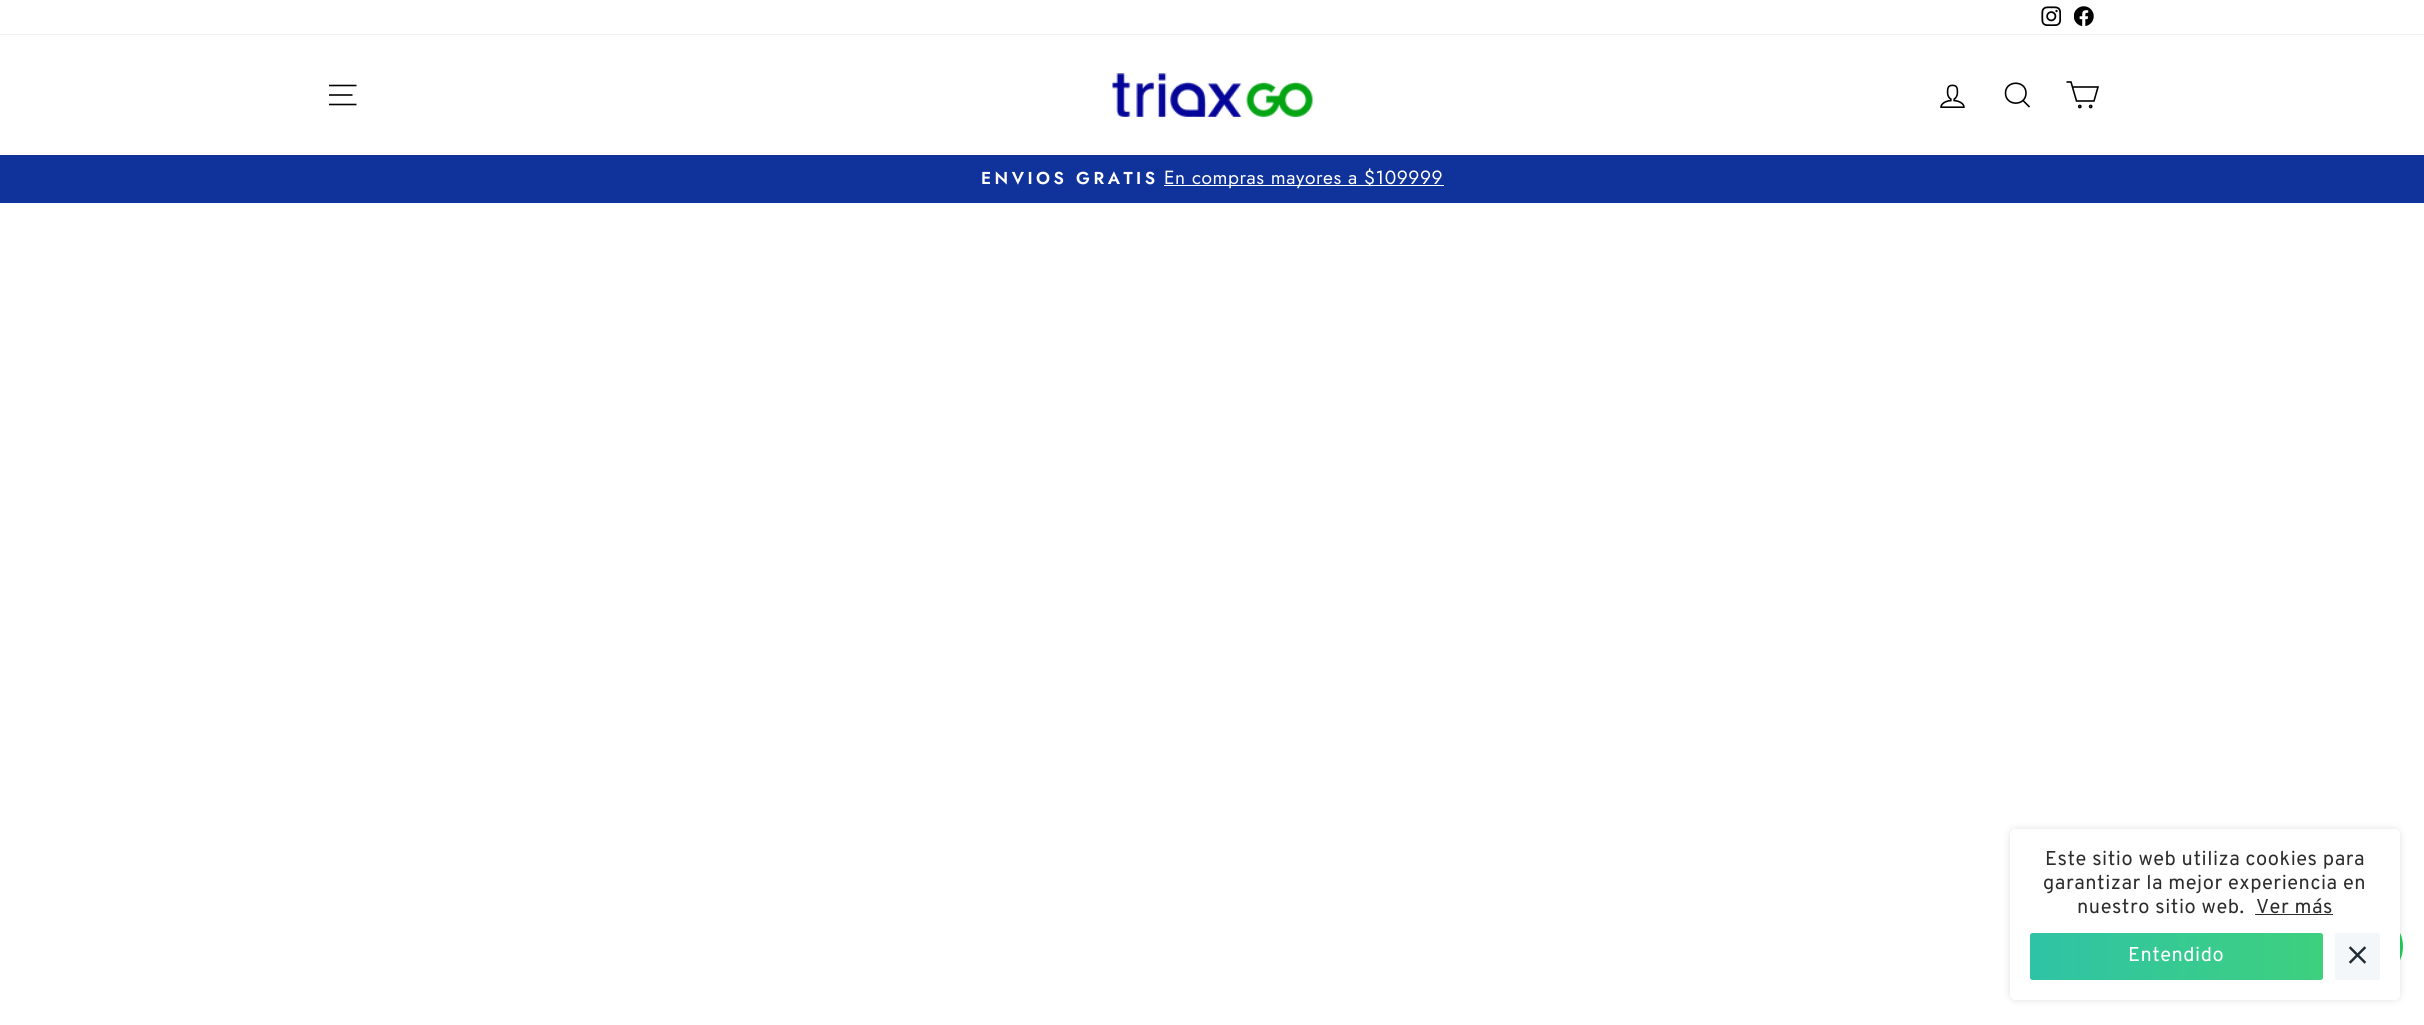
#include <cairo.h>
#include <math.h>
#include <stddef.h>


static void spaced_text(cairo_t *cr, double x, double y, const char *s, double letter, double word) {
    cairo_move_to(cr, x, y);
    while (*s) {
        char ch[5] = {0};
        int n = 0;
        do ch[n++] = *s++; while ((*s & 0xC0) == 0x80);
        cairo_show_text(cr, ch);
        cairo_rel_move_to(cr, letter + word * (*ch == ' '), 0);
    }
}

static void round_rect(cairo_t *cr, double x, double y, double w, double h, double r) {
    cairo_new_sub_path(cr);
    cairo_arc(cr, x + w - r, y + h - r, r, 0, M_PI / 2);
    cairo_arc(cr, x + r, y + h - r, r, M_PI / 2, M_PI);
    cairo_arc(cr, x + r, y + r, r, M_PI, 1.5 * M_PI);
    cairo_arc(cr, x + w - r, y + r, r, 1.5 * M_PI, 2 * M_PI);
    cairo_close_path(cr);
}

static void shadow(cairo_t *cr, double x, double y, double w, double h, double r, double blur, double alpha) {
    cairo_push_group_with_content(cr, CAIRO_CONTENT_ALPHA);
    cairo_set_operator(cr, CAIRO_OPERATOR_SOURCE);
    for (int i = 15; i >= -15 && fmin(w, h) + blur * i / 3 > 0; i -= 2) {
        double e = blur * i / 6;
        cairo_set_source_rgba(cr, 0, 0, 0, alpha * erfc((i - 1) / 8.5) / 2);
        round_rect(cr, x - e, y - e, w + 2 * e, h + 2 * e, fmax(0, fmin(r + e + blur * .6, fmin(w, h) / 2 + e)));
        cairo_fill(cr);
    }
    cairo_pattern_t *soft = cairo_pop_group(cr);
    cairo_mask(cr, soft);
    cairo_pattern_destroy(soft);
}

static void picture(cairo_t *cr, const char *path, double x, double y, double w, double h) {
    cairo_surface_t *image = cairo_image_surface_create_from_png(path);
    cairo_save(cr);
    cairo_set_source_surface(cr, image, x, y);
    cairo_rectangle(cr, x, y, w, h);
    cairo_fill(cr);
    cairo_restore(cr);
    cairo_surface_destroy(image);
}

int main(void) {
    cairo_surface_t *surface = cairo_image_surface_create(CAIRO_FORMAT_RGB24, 2424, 1025);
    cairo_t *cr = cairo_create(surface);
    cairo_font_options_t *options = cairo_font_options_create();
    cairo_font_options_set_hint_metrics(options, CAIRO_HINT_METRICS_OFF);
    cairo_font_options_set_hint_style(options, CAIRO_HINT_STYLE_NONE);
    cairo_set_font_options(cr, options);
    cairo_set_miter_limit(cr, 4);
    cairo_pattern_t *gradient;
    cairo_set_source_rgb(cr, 1, 1, 1);
    cairo_paint(cr);
    picture(cr, "img1.png", 2041, 6, 20, 20);
    picture(cr, "img2.png", 2074, 6, 20, 20);
    cairo_set_source_rgb(cr, 0.063, 0.196, 0.608);
    cairo_rectangle(cr, 0, 155, 2424, 48);
    cairo_fill(cr);
    cairo_set_source_rgb(cr, 0, 0, 0);
    shadow(cr, 0, 35, 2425, 120, 0, 0.5, 0.2);
    cairo_set_source_rgb(cr, 1, 1, 1);
    cairo_rectangle(cr, 0, 35, 2424, 120);
    cairo_fill(cr);
    cairo_new_path(cr);
    cairo_move_to(cr, 329, 85.5);
    cairo_line_to(cr, 356.5, 85.5);
    cairo_move_to(cr, 329, 95);
    cairo_line_to(cr, 352.5, 95);
    cairo_move_to(cr, 329, 104.5);
    cairo_line_to(cr, 356.5, 104.5);
    cairo_set_source_rgb(cr, 0, 0, 0);
    cairo_set_line_width(cr, 1.6);
    cairo_stroke(cr);
    picture(cr, "img3.png", 1112, 73, 201, 44);
    picture(cr, "img4.png", 1940, 84, 25, 24);
    cairo_new_path(cr);
    cairo_move_to(cr, 2026, 93);
    cairo_curve_to(cr, 2026, 106.5, 2005.5, 106.5, 2005.5, 93);
    cairo_curve_to(cr, 2005.5, 80, 2026, 80, 2026, 93);
    cairo_close_path(cr);
    cairo_move_to(cr, 2029.5, 107);
    cairo_line_to(cr, 2023, 100.5);
    cairo_stroke(cr);
    cairo_new_path(cr);
    cairo_move_to(cr, 2072.5, 87);
    cairo_line_to(cr, 2098, 87);
    cairo_line_to(cr, 2094, 101);
    cairo_line_to(cr, 2076.5, 101);
    cairo_line_to(cr, 2071, 82);
    cairo_line_to(cr, 2066.5, 82);
    cairo_stroke(cr);
    cairo_arc(cr, 2079.8, 106.5, 1.1, 0, 2 * M_PI);
    cairo_stroke(cr);
    cairo_arc(cr, 2090.7, 106.5, 1.1, 0, 2 * M_PI);
    cairo_stroke(cr);
    cairo_select_font_face(cr, "Jost SemiBold", CAIRO_FONT_SLANT_NORMAL, CAIRO_FONT_WEIGHT_NORMAL);
    cairo_set_font_size(cr, 17.25);
    cairo_set_source_rgb(cr, 1, 1, 1);
    spaced_text(cr, 981, 184, "ENVIOS GRATIS", 3.5, 0);
    cairo_rectangle(cr, 1164, 185, 280, 1);
    cairo_fill(cr);
    cairo_select_font_face(cr, "Jost", CAIRO_FONT_SLANT_NORMAL, CAIRO_FONT_WEIGHT_NORMAL);
    cairo_set_font_size(cr, 19.1);
    spaced_text(cr, 1164, 184, "En compras mayores a $109999", 0.55, 0);
    cairo_set_source_rgb(cr, 0.133, 0.804, 0.357);
    round_rect(cr, 2335, 913, 68, 67, 33.5);
    cairo_fill(cr);
    cairo_set_source_rgb(cr, 1, 1, 1);
    round_rect(cr, 2010, 829, 390, 171, 6);
    cairo_fill(cr);
    cairo_save(cr);
    cairo_set_fill_rule(cr, CAIRO_FILL_RULE_EVEN_ODD);
    cairo_new_path(cr);
    cairo_move_to(cr, 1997, 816);
    cairo_line_to(cr, 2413, 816);
    cairo_line_to(cr, 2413, 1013);
    cairo_line_to(cr, 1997, 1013);
    cairo_close_path(cr);
    cairo_move_to(cr, 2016, 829);
    cairo_line_to(cr, 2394, 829);
    cairo_curve_to(cr, 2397.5, 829, 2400, 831.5, 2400, 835);
    cairo_line_to(cr, 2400, 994);
    cairo_curve_to(cr, 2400, 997.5, 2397.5, 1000, 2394, 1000);
    cairo_line_to(cr, 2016, 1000);
    cairo_curve_to(cr, 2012.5, 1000, 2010, 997.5, 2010, 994);
    cairo_line_to(cr, 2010, 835);
    cairo_curve_to(cr, 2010, 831.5, 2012.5, 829, 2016, 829);
    cairo_close_path(cr);
    cairo_clip(cr);
    cairo_set_source_rgb(cr, 0, 0, 0);
    shadow(cr, 2010, 829, 390, 171, 6, 4, 0.12);
    cairo_restore(cr);
    cairo_select_font_face(cr, "Overpass", CAIRO_FONT_SLANT_NORMAL, CAIRO_FONT_WEIGHT_NORMAL);
    cairo_set_font_size(cr, 20);
    cairo_set_source_rgb(cr, 0.176, 0.176, 0.176);
    spaced_text(cr, 2045, 865, "Este sitio web utiliza cookies para", 0.55, 0);
    spaced_text(cr, 2043, 889, "garantizar la mejor experiencia en", 0.55, 0);
    spaced_text(cr, 2077, 913, "nuestro sitio web.", 0.55, 0);
    spaced_text(cr, 2256, 913, "Ver más", 0.55, 0);
    cairo_rectangle(cr, 2255, 914, 78, 1);
    cairo_fill(cr);
    gradient = cairo_pattern_create_linear(2030, 956, 2323, 956);
    cairo_pattern_add_color_stop_rgba(gradient, 0, 0.184, 0.765, 0.651, 1);
    cairo_pattern_add_color_stop_rgba(gradient, 1, 0.243, 0.816, 0.494, 1);
    cairo_set_source(cr, gradient);
    cairo_pattern_destroy(gradient);
    round_rect(cr, 2030, 933, 293, 47, 2.5);
    cairo_fill(cr);
    cairo_set_source_rgb(cr, 1, 1, 1);
    spaced_text(cr, 2128, 961, "Entendido", 0.5, 0);
    cairo_set_source_rgb(cr, 0.957, 0.965, 0.973);
    round_rect(cr, 2335, 933, 45, 47, 2.5);
    cairo_fill(cr);
    picture(cr, "img5.png", 2348, 946, 19, 18);
    cairo_surface_write_to_png(surface, "page.png");
    cairo_font_options_destroy(options);
    cairo_destroy(cr);
    cairo_surface_destroy(surface);
    return 0;
}
